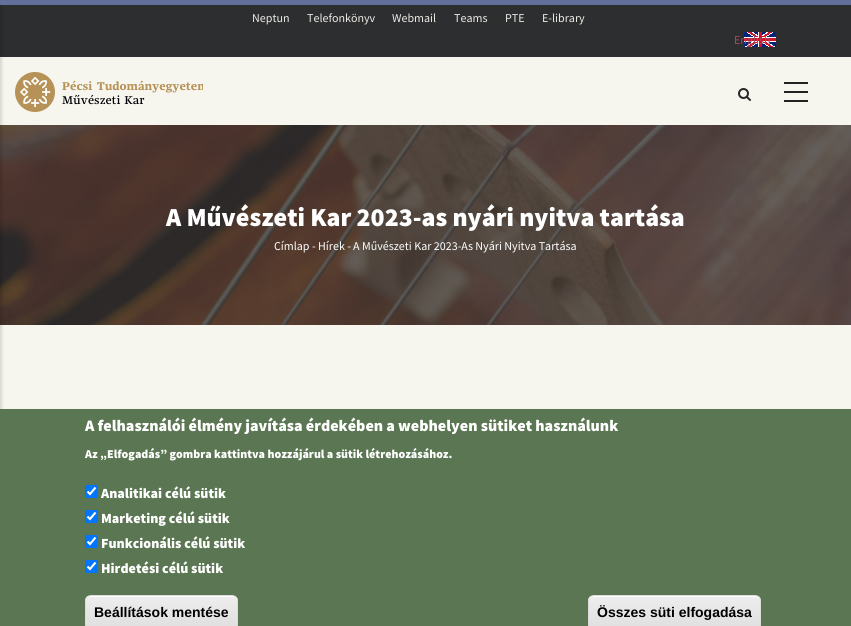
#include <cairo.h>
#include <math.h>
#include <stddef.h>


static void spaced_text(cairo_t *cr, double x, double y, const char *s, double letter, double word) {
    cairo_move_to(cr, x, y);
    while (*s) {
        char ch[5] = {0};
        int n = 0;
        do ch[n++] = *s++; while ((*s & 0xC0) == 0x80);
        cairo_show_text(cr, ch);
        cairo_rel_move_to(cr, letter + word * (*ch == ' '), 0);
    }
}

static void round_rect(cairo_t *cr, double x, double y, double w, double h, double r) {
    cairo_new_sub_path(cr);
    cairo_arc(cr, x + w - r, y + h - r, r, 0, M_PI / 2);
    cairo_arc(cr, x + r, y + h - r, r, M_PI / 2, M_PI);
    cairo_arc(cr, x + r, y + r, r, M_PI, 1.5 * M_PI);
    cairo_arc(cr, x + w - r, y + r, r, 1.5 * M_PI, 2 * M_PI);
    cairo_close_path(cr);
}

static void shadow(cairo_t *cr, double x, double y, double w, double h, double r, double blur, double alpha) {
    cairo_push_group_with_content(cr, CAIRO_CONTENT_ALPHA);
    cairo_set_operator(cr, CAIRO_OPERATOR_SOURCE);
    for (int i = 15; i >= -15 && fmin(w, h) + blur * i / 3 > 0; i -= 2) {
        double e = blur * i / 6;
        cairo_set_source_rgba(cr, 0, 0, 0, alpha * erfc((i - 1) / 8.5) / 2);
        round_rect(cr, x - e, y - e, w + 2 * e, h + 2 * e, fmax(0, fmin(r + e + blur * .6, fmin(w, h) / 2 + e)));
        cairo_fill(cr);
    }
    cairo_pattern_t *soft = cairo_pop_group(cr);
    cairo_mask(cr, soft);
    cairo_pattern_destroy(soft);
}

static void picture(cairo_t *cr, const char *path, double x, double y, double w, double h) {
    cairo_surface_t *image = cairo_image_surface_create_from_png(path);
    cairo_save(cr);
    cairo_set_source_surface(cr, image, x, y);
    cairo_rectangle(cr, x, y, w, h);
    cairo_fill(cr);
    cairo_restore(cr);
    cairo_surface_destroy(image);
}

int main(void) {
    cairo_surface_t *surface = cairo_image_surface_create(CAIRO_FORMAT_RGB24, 851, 626);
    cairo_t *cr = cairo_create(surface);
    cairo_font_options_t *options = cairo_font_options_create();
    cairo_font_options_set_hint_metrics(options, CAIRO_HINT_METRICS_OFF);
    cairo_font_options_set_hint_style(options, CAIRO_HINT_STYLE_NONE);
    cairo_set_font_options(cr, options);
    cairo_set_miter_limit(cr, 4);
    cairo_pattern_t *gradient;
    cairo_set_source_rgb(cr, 0.965, 0.961, 0.933);
    cairo_paint(cr);
    cairo_set_source_rgb(cr, 0.176, 0.18, 0.188);
    cairo_rectangle(cr, 0, 0, 851, 57);
    cairo_fill(cr);
    picture(cr, "img3.png", 0, 125, 851, 200);
    cairo_set_source_rgb(cr, 0, 0, 0);
    shadow(cr, -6, 3, 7, 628, 0, 2, 0.2);
    cairo_set_source_rgba(cr, 0.451, 0.514, 0.745, 0.76);
    cairo_rectangle(cr, 0, 0, 851, 5);
    cairo_fill(cr);
    cairo_select_font_face(cr, "Source Sans Pro", CAIRO_FONT_SLANT_NORMAL, CAIRO_FONT_WEIGHT_NORMAL);
    cairo_set_font_size(cr, 12);
    cairo_set_source_rgb(cr, 0.929, 0.925, 0.898);
    cairo_move_to(cr, 252, 22);
    cairo_show_text(cr, "Neptun");
    cairo_move_to(cr, 307, 22);
    cairo_show_text(cr, "Telefonkönyv");
    cairo_move_to(cr, 392, 22);
    cairo_show_text(cr, "Webmail");
    cairo_move_to(cr, 454, 22);
    cairo_show_text(cr, "Teams");
    cairo_move_to(cr, 505, 22);
    cairo_show_text(cr, "PTE");
    cairo_move_to(cr, 542, 22);
    cairo_show_text(cr, "E-library");
    gradient = cairo_pattern_create_linear(769, 53, 751, 26);
    cairo_pattern_add_color_stop_rgba(gradient, 0.45, 0.004, 0.141, 0.49, 1);
    cairo_pattern_add_color_stop_rgba(gradient, 0.45, 1, 1, 1, 1);
    cairo_pattern_add_color_stop_rgba(gradient, 0.48, 1, 1, 1, 1);
    cairo_pattern_add_color_stop_rgba(gradient, 0.48, 0.812, 0.078, 0.169, 1);
    cairo_pattern_add_color_stop_rgba(gradient, 0.54, 0.812, 0.078, 0.169, 1);
    cairo_pattern_add_color_stop_rgba(gradient, 0.54, 1, 1, 1, 1);
    cairo_pattern_add_color_stop_rgba(gradient, 0.57, 1, 1, 1, 1);
    cairo_pattern_add_color_stop_rgba(gradient, 0.57, 0.004, 0.141, 0.49, 1);
    cairo_set_source(cr, gradient);
    cairo_pattern_destroy(gradient);
    cairo_rectangle(cr, 744, 32, 32, 15);
    cairo_fill(cr);
    gradient = cairo_pattern_create_linear(751, 53, 769, 26);
    cairo_pattern_add_color_stop_rgba(gradient, 0.45, 1, 1, 1, 0);
    cairo_pattern_add_color_stop_rgba(gradient, 0.45, 1, 1, 1, 1);
    cairo_pattern_add_color_stop_rgba(gradient, 0.48, 1, 1, 1, 1);
    cairo_pattern_add_color_stop_rgba(gradient, 0.48, 0.812, 0.078, 0.169, 1);
    cairo_pattern_add_color_stop_rgba(gradient, 0.54, 0.812, 0.078, 0.169, 1);
    cairo_pattern_add_color_stop_rgba(gradient, 0.54, 1, 1, 1, 1);
    cairo_pattern_add_color_stop_rgba(gradient, 0.57, 1, 1, 1, 1);
    cairo_pattern_add_color_stop_rgba(gradient, 0.57, 1, 1, 1, 0);
    cairo_set_source(cr, gradient);
    cairo_pattern_destroy(gradient);
    cairo_rectangle(cr, 747, 32, 28, 15);
    cairo_fill(cr);
    cairo_set_source_rgb(cr, 1, 1, 1);
    cairo_rectangle(cr, 758, 32, 1, 15);
    cairo_fill(cr);
    cairo_rectangle(cr, 744, 37, 32, 1);
    cairo_fill(cr);
    cairo_set_source_rgb(cr, 0.812, 0.078, 0.169);
    cairo_rectangle(cr, 744, 38, 32, 3);
    cairo_fill(cr);
    cairo_set_source_rgb(cr, 1, 1, 1);
    cairo_rectangle(cr, 744, 41, 32, 1);
    cairo_fill(cr);
    cairo_set_source_rgb(cr, 0.812, 0.078, 0.169);
    cairo_rectangle(cr, 759, 32, 3, 15);
    cairo_fill(cr);
    cairo_set_source_rgb(cr, 0.647, 0.302, 0.376);
    cairo_move_to(cr, 734, 44);
    cairo_show_text(cr, "English");
    picture(cr, "img1.png", 738, 88, 13, 13);
    cairo_set_source_rgb(cr, 0.133, 0.133, 0.133);
    cairo_rectangle(cr, 784, 82, 24, 2);
    cairo_fill(cr);
    cairo_rectangle(cr, 784, 91, 24, 2);
    cairo_fill(cr);
    cairo_rectangle(cr, 784, 100, 24, 2);
    cairo_fill(cr);
    picture(cr, "img2.png", 15, 72, 40, 40);
    cairo_save(cr);
    cairo_rectangle(cr, 15, 67, 188, 50);
    cairo_clip(cr);
    cairo_select_font_face(cr, "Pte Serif", CAIRO_FONT_SLANT_NORMAL, CAIRO_FONT_WEIGHT_BOLD);
    cairo_set_font_size(cr, 11.7);
    cairo_set_source_rgb(cr, 0.718, 0.573, 0.341);
    spaced_text(cr, 62, 90, "Pécsi Tudományegyetem", 0, 2);
    cairo_restore(cr);
    cairo_select_font_face(cr, "Pte Serif Medium", CAIRO_FONT_SLANT_NORMAL, CAIRO_FONT_WEIGHT_NORMAL);
    cairo_set_font_size(cr, 11.7);
    cairo_set_source_rgb(cr, 0, 0, 0.024);
    spaced_text(cr, 62, 104, "Művészeti Kar", 0, 1);
    cairo_select_font_face(cr, "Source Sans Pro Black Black", CAIRO_FONT_SLANT_NORMAL, CAIRO_FONT_WEIGHT_NORMAL);
    cairo_set_font_size(cr, 26);
    cairo_set_source_rgb(cr, 1, 1, 1);
    cairo_move_to(cr, 166, 226);
    cairo_show_text(cr, "A Művészeti Kar 2023-as nyári nyitva tartása");
    cairo_select_font_face(cr, "Source Sans Pro", CAIRO_FONT_SLANT_NORMAL, CAIRO_FONT_WEIGHT_NORMAL);
    cairo_set_font_size(cr, 12);
    cairo_move_to(cr, 274, 250);
    cairo_show_text(cr, "Címlap -");
    cairo_move_to(cr, 318, 250);
    cairo_show_text(cr, "Hírek -");
    cairo_move_to(cr, 353, 250);
    cairo_show_text(cr, "A Művészeti Kar 2023-As Nyári Nyitva Tartása");
    cairo_set_source_rgb(cr, 0.357, 0.463, 0.322);
    cairo_rectangle(cr, 0, 409, 851, 217);
    cairo_fill(cr);
    cairo_select_font_face(cr, "Source Sans Pro Black Black", CAIRO_FONT_SLANT_NORMAL, CAIRO_FONT_WEIGHT_NORMAL);
    cairo_set_font_size(cr, 16);
    cairo_set_source_rgb(cr, 1, 1, 1);
    cairo_move_to(cr, 85, 431);
    cairo_show_text(cr, "A felhasználói élmény javítása érdekében a webhelyen sütiket használunk");
    cairo_set_font_size(cr, 12);
    cairo_move_to(cr, 85, 458);
    cairo_show_text(cr, "Az „Elfogadás” gombra kattintva hozzájárul a sütik létrehozásához.");
    cairo_set_source_rgb(cr, 0, 0.459, 1);
    round_rect(cr, 85, 485, 13, 13, 2);
    cairo_fill(cr);
    cairo_new_path(cr);
    cairo_move_to(cr, 87.5, 491.5);
    cairo_line_to(cr, 90, 494);
    cairo_line_to(cr, 95.5, 487.5);
    cairo_set_source_rgb(cr, 1, 1, 1);
    cairo_set_line_width(cr, 2.1);
    cairo_stroke(cr);
    cairo_set_font_size(cr, 14);
    cairo_move_to(cr, 101, 498);
    cairo_show_text(cr, "Analitikai célú sütik");
    cairo_set_source_rgb(cr, 0, 0.459, 1);
    round_rect(cr, 85, 510, 13, 13, 2);
    cairo_fill(cr);
    cairo_new_path(cr);
    cairo_move_to(cr, 87.5, 516.5);
    cairo_line_to(cr, 90, 519);
    cairo_line_to(cr, 95.5, 512.5);
    cairo_set_source_rgb(cr, 1, 1, 1);
    cairo_stroke(cr);
    cairo_move_to(cr, 101, 523);
    cairo_show_text(cr, "Marketing célú sütik");
    cairo_set_source_rgb(cr, 0, 0.459, 1);
    round_rect(cr, 85, 535, 13, 13, 2);
    cairo_fill(cr);
    cairo_new_path(cr);
    cairo_move_to(cr, 87.5, 541.5);
    cairo_line_to(cr, 90, 544);
    cairo_line_to(cr, 95.5, 537.5);
    cairo_set_source_rgb(cr, 1, 1, 1);
    cairo_stroke(cr);
    cairo_move_to(cr, 101, 548);
    cairo_show_text(cr, "Funkcionális célú sütik");
    cairo_set_source_rgb(cr, 0, 0.459, 1);
    round_rect(cr, 85, 560, 13, 13, 2);
    cairo_fill(cr);
    cairo_new_path(cr);
    cairo_move_to(cr, 87.5, 566.5);
    cairo_line_to(cr, 90, 569);
    cairo_line_to(cr, 95.5, 562.5);
    cairo_set_source_rgb(cr, 1, 1, 1);
    cairo_stroke(cr);
    cairo_move_to(cr, 101, 573);
    cairo_show_text(cr, "Hirdetési célú sütik");
    cairo_save(cr);
    round_rect(cr, 85, 595, 153, 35, 6);
    cairo_clip(cr);
    gradient = cairo_pattern_create_linear(162, 596, 162, 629);
    cairo_pattern_add_color_stop_rgba(gradient, 0.05, 0.929, 0.929, 0.929, 1);
    cairo_pattern_add_color_stop_rgba(gradient, 1, 0.875, 0.875, 0.875, 1);
    cairo_set_source(cr, gradient);
    cairo_pattern_destroy(gradient);
    cairo_rectangle(cr, 85, 596, 153, 30);
    cairo_fill(cr);
    cairo_restore(cr);
    cairo_new_path(cr);
    cairo_move_to(cr, 91, 597);
    cairo_line_to(cr, 232, 597);
    cairo_curve_to(cr, 235, 597, 237, 599, 237, 602);
    cairo_line_to(cr, 237, 601);
    cairo_curve_to(cr, 237, 598, 235, 596, 232, 596);
    cairo_line_to(cr, 91, 596);
    cairo_curve_to(cr, 88, 596, 86, 598, 86, 601);
    cairo_line_to(cr, 86, 602);
    cairo_curve_to(cr, 86, 599, 88, 597, 91, 597);
    cairo_close_path(cr);
    cairo_fill(cr);
    round_rect(cr, 85.5, 595.5, 152, 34, 5.5);
    cairo_set_source_rgb(cr, 0.863, 0.863, 0.863);
    cairo_set_line_width(cr, 1);
    cairo_stroke(cr);
    cairo_select_font_face(cr, "Liberation Sans", CAIRO_FONT_SLANT_NORMAL, CAIRO_FONT_WEIGHT_BOLD);
    cairo_set_source_rgb(cr, 0, 0, 0);
    cairo_move_to(cr, 94, 617);
    cairo_show_text(cr, "Beállítások mentése");
    cairo_save(cr);
    round_rect(cr, 588, 595, 173, 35, 6);
    cairo_clip(cr);
    gradient = cairo_pattern_create_linear(675, 596, 675, 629);
    cairo_pattern_add_color_stop_rgba(gradient, 0.05, 0.929, 0.929, 0.929, 1);
    cairo_pattern_add_color_stop_rgba(gradient, 1, 0.875, 0.875, 0.875, 1);
    cairo_set_source(cr, gradient);
    cairo_pattern_destroy(gradient);
    cairo_rectangle(cr, 588, 596, 173, 30);
    cairo_fill(cr);
    cairo_restore(cr);
    cairo_set_source_rgb(cr, 1, 1, 1);
    cairo_new_path(cr);
    cairo_move_to(cr, 594, 597);
    cairo_line_to(cr, 755, 597);
    cairo_curve_to(cr, 758, 597, 760, 599, 760, 602);
    cairo_line_to(cr, 760, 601);
    cairo_curve_to(cr, 760, 598, 758, 596, 755, 596);
    cairo_line_to(cr, 594, 596);
    cairo_curve_to(cr, 591, 596, 589, 598, 589, 601);
    cairo_line_to(cr, 589, 602);
    cairo_curve_to(cr, 589, 599, 591, 597, 594, 597);
    cairo_close_path(cr);
    cairo_fill(cr);
    round_rect(cr, 588.5, 595.5, 172, 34, 5.5);
    cairo_set_source_rgb(cr, 0.863, 0.863, 0.863);
    cairo_stroke(cr);
    cairo_set_source_rgb(cr, 0, 0, 0);
    cairo_move_to(cr, 597, 617);
    cairo_show_text(cr, "Összes süti elfogadása");
    cairo_surface_write_to_png(surface, "page.png");
    cairo_font_options_destroy(options);
    cairo_destroy(cr);
    cairo_surface_destroy(surface);
    return 0;
}
